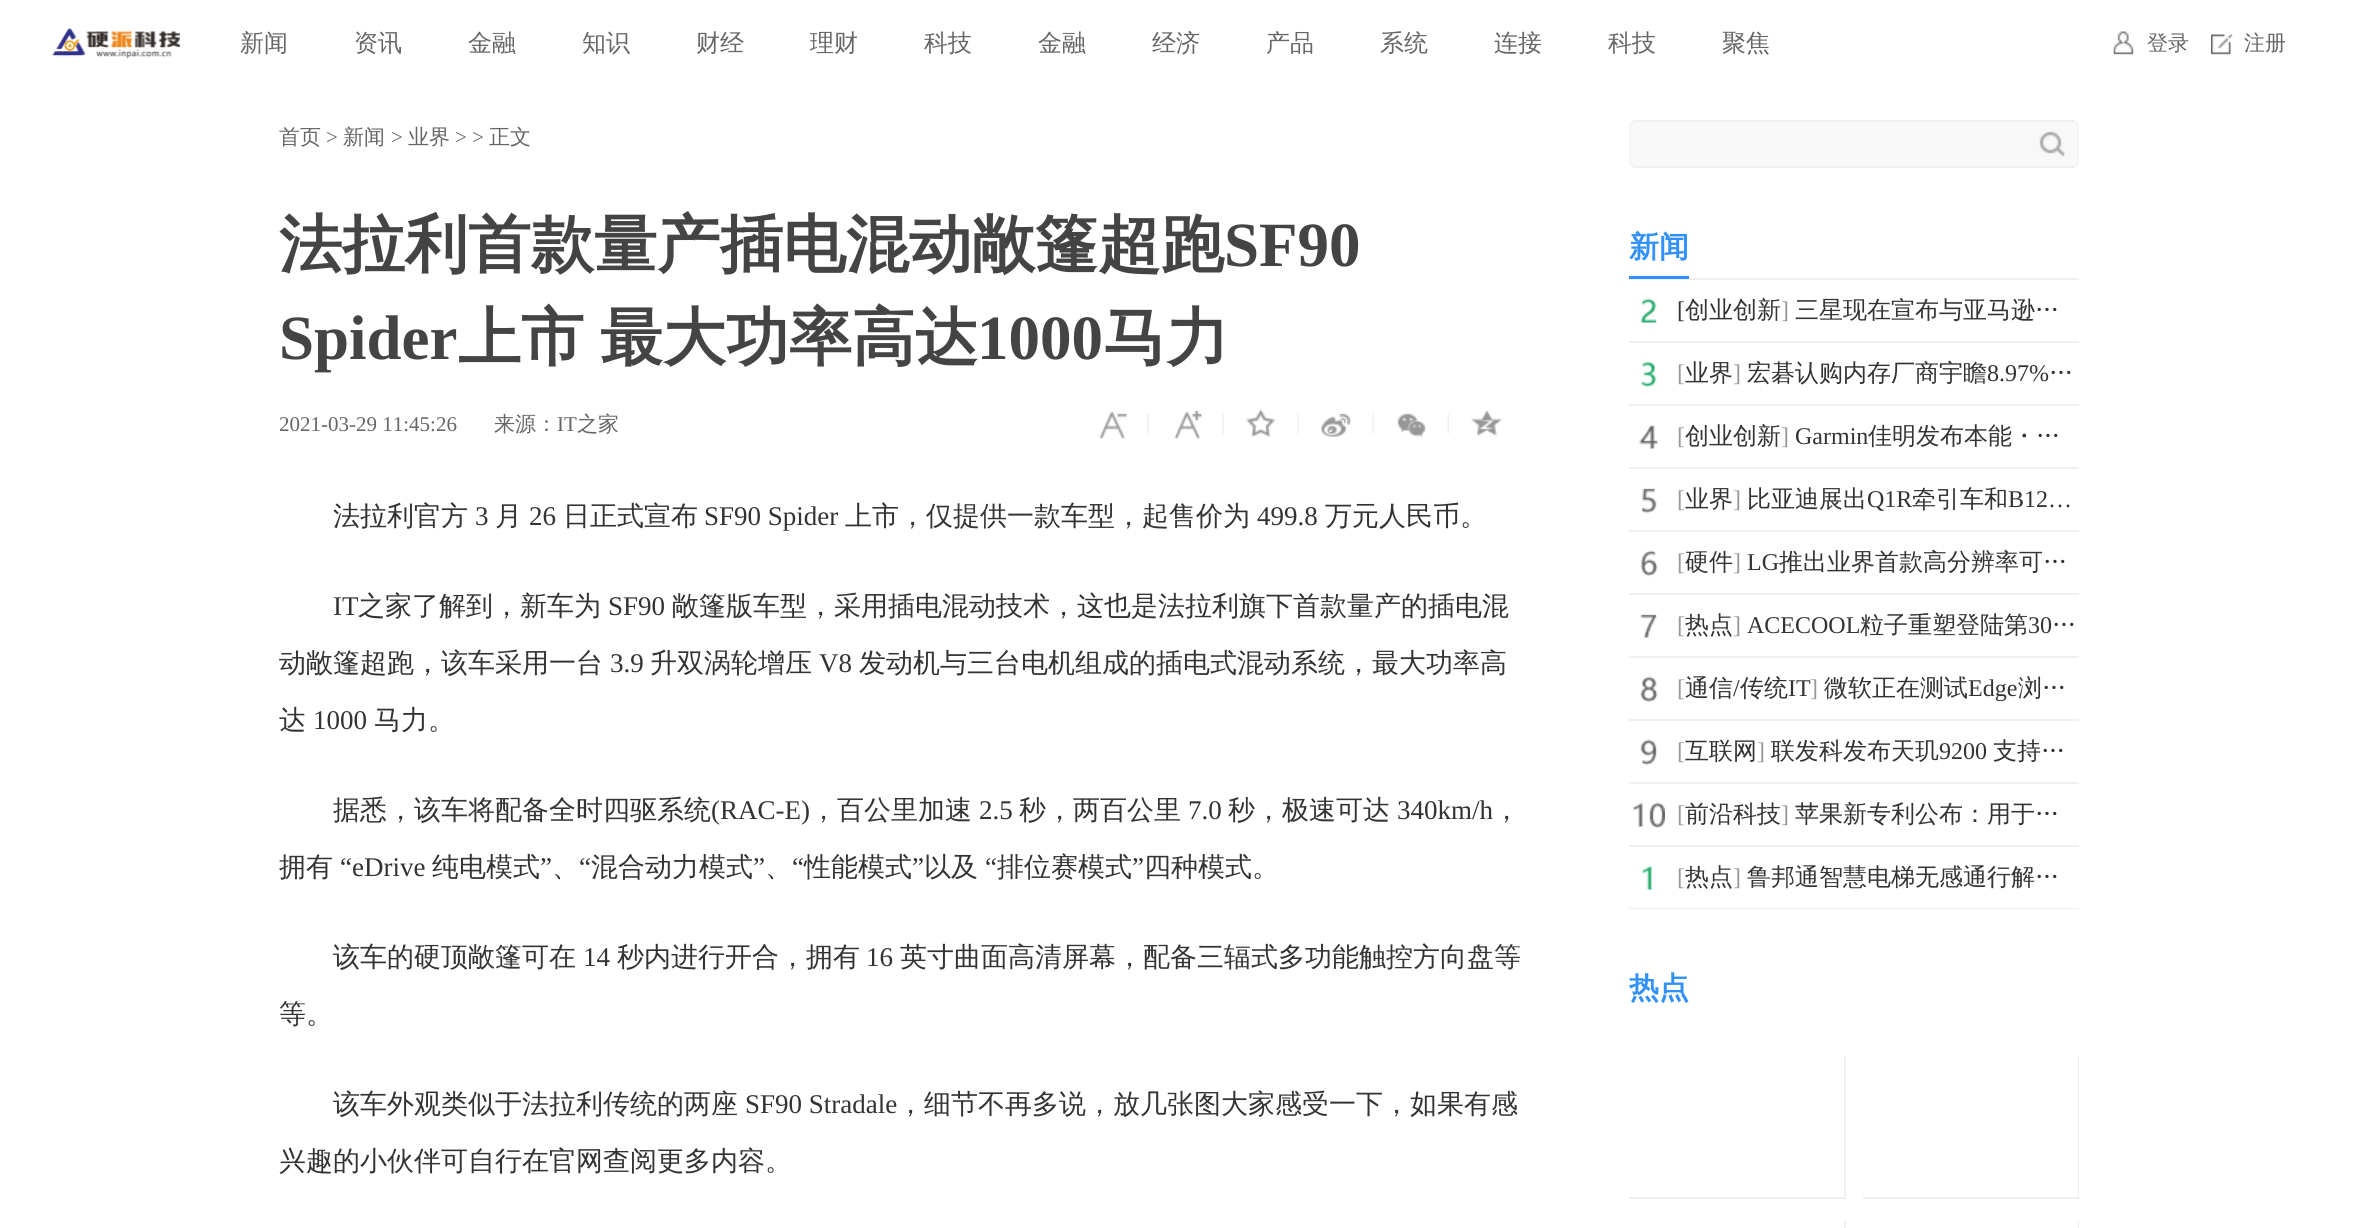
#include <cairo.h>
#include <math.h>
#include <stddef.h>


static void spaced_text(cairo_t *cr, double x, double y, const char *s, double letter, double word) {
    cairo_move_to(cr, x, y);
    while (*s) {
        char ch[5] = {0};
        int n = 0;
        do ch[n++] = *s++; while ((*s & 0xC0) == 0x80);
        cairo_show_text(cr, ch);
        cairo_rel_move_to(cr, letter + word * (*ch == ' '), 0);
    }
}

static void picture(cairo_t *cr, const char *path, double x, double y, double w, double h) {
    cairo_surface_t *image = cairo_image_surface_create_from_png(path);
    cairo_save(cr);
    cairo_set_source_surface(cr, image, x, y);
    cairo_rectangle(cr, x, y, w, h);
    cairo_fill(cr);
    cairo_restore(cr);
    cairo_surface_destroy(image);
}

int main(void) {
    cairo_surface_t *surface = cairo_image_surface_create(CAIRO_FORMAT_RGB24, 2358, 1228);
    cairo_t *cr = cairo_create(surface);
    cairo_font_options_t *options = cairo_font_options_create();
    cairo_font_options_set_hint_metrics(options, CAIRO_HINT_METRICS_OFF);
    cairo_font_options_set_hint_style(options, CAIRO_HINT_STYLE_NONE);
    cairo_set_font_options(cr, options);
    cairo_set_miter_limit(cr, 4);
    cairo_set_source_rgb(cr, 1, 1, 1);
    cairo_paint(cr);
    picture(cr, "img1.png", 52, 28, 128, 31);
    cairo_select_font_face(cr, "WenQuanYi Zen Hei Medium", CAIRO_FONT_SLANT_NORMAL, CAIRO_FONT_WEIGHT_NORMAL);
    cairo_set_font_size(cr, 24);
    cairo_set_source_rgb(cr, 0.4, 0.4, 0.4);
    cairo_move_to(cr, 240, 51);
    cairo_show_text(cr, "新闻");
    cairo_move_to(cr, 354, 51);
    cairo_show_text(cr, "资讯");
    cairo_move_to(cr, 468, 51);
    cairo_show_text(cr, "金融");
    cairo_move_to(cr, 582, 51);
    cairo_show_text(cr, "知识");
    cairo_move_to(cr, 696, 51);
    cairo_show_text(cr, "财经");
    cairo_move_to(cr, 810, 51);
    cairo_show_text(cr, "理财");
    cairo_move_to(cr, 924, 51);
    cairo_show_text(cr, "科技");
    cairo_move_to(cr, 1038, 51);
    cairo_show_text(cr, "金融");
    cairo_move_to(cr, 1152, 51);
    cairo_show_text(cr, "经济");
    cairo_move_to(cr, 1266, 51);
    cairo_show_text(cr, "产品");
    cairo_move_to(cr, 1380, 51);
    cairo_show_text(cr, "系统");
    cairo_move_to(cr, 1494, 51);
    cairo_show_text(cr, "连接");
    cairo_move_to(cr, 1608, 51);
    cairo_show_text(cr, "科技");
    cairo_move_to(cr, 1722, 51);
    cairo_show_text(cr, "聚焦");
    picture(cr, "img2.png", 2113, 31, 21, 24);
    cairo_set_font_size(cr, 21);
    cairo_move_to(cr, 2147, 50);
    cairo_show_text(cr, "登录");
    picture(cr, "img3.png", 2211, 34, 22, 21);
    cairo_move_to(cr, 2244, 50);
    cairo_show_text(cr, "注册");
    cairo_move_to(cr, 279, 144);
    cairo_show_text(cr, "首页");
    cairo_select_font_face(cr, "Liberation Serif", CAIRO_FONT_SLANT_NORMAL, CAIRO_FONT_WEIGHT_NORMAL);
    cairo_move_to(cr, 326, 144);
    cairo_show_text(cr, ">");
    cairo_select_font_face(cr, "WenQuanYi Zen Hei Medium", CAIRO_FONT_SLANT_NORMAL, CAIRO_FONT_WEIGHT_NORMAL);
    cairo_move_to(cr, 343, 144);
    cairo_show_text(cr, "新闻");
    cairo_select_font_face(cr, "Liberation Serif", CAIRO_FONT_SLANT_NORMAL, CAIRO_FONT_WEIGHT_NORMAL);
    cairo_move_to(cr, 391, 144);
    cairo_show_text(cr, ">");
    cairo_select_font_face(cr, "WenQuanYi Zen Hei Medium", CAIRO_FONT_SLANT_NORMAL, CAIRO_FONT_WEIGHT_NORMAL);
    cairo_move_to(cr, 408, 144);
    cairo_show_text(cr, "业界");
    cairo_select_font_face(cr, "Liberation Serif", CAIRO_FONT_SLANT_NORMAL, CAIRO_FONT_WEIGHT_NORMAL);
    cairo_move_to(cr, 455, 144);
    cairo_show_text(cr, "> >");
    cairo_select_font_face(cr, "WenQuanYi Zen Hei Medium", CAIRO_FONT_SLANT_NORMAL, CAIRO_FONT_WEIGHT_NORMAL);
    cairo_move_to(cr, 489, 144);
    cairo_show_text(cr, "正文");
    cairo_select_font_face(cr, "WenQuanYi Zen Hei", CAIRO_FONT_SLANT_NORMAL, CAIRO_FONT_WEIGHT_BOLD);
    cairo_set_font_size(cr, 63);
    cairo_set_source_rgb(cr, 0.267, 0.267, 0.267);
    cairo_move_to(cr, 279, 266);
    cairo_show_text(cr, "法拉利首款量产插电混动敞篷超跑");
    cairo_select_font_face(cr, "Liberation Serif", CAIRO_FONT_SLANT_NORMAL, CAIRO_FONT_WEIGHT_BOLD);
    cairo_move_to(cr, 1224, 266);
    cairo_show_text(cr, "SF90");
    cairo_move_to(cr, 279, 359);
    cairo_show_text(cr, "Spider");
    cairo_select_font_face(cr, "WenQuanYi Zen Hei", CAIRO_FONT_SLANT_NORMAL, CAIRO_FONT_WEIGHT_BOLD);
    spaced_text(cr, 458, 359, "上市 最大功率高达", 0, -3);
    cairo_select_font_face(cr, "Liberation Serif", CAIRO_FONT_SLANT_NORMAL, CAIRO_FONT_WEIGHT_BOLD);
    cairo_move_to(cr, 977, 359);
    cairo_show_text(cr, "1000");
    cairo_select_font_face(cr, "WenQuanYi Zen Hei", CAIRO_FONT_SLANT_NORMAL, CAIRO_FONT_WEIGHT_BOLD);
    cairo_move_to(cr, 1103, 359);
    cairo_show_text(cr, "马力");
    cairo_select_font_face(cr, "Liberation Serif", CAIRO_FONT_SLANT_NORMAL, CAIRO_FONT_WEIGHT_NORMAL);
    cairo_set_font_size(cr, 21);
    cairo_set_source_rgb(cr, 0.4, 0.4, 0.4);
    cairo_move_to(cr, 279, 431);
    cairo_show_text(cr, "2021-03-29 11:45:26");
    cairo_select_font_face(cr, "WenQuanYi Zen Hei Medium", CAIRO_FONT_SLANT_NORMAL, CAIRO_FONT_WEIGHT_NORMAL);
    cairo_move_to(cr, 494, 431);
    cairo_show_text(cr, "来源：");
    cairo_select_font_face(cr, "Liberation Serif", CAIRO_FONT_SLANT_NORMAL, CAIRO_FONT_WEIGHT_NORMAL);
    cairo_move_to(cr, 557, 431);
    cairo_show_text(cr, "IT");
    cairo_select_font_face(cr, "WenQuanYi Zen Hei Medium", CAIRO_FONT_SLANT_NORMAL, CAIRO_FONT_WEIGHT_NORMAL);
    cairo_move_to(cr, 577, 431);
    cairo_show_text(cr, "之家");
    picture(cr, "img4.png", 1147, 414, 2, 20);
    picture(cr, "img5.png", 1099, 411, 28, 29);
    picture(cr, "img4.png", 1222, 414, 2, 20);
    picture(cr, "img6.png", 1174, 410, 28, 30);
    picture(cr, "img4.png", 1297, 414, 2, 20);
    picture(cr, "img7.png", 1246, 409, 30, 28);
    picture(cr, "img4.png", 1372, 414, 2, 20);
    picture(cr, "img8.png", 1321, 413, 30, 24);
    picture(cr, "img4.png", 1447, 414, 2, 20);
    picture(cr, "img9.png", 1397, 413, 29, 24);
    picture(cr, "img10.png", 1471, 410, 31, 26);
    cairo_set_font_size(cr, 27);
    cairo_set_source_rgb(cr, 0.2, 0.2, 0.2);
    cairo_move_to(cr, 333, 525);
    cairo_show_text(cr, "法拉利官方");
    cairo_select_font_face(cr, "Liberation Serif", CAIRO_FONT_SLANT_NORMAL, CAIRO_FONT_WEIGHT_NORMAL);
    cairo_move_to(cr, 475, 525);
    cairo_show_text(cr, "3");
    cairo_select_font_face(cr, "WenQuanYi Zen Hei Medium", CAIRO_FONT_SLANT_NORMAL, CAIRO_FONT_WEIGHT_NORMAL);
    cairo_move_to(cr, 495, 525);
    cairo_show_text(cr, "月");
    cairo_select_font_face(cr, "Liberation Serif", CAIRO_FONT_SLANT_NORMAL, CAIRO_FONT_WEIGHT_NORMAL);
    cairo_move_to(cr, 529, 525);
    cairo_show_text(cr, "26");
    cairo_select_font_face(cr, "WenQuanYi Zen Hei Medium", CAIRO_FONT_SLANT_NORMAL, CAIRO_FONT_WEIGHT_NORMAL);
    cairo_move_to(cr, 563, 525);
    cairo_show_text(cr, "日正式宣布");
    cairo_select_font_face(cr, "Liberation Serif", CAIRO_FONT_SLANT_NORMAL, CAIRO_FONT_WEIGHT_NORMAL);
    cairo_move_to(cr, 704, 525);
    cairo_show_text(cr, "SF90 Spider");
    cairo_select_font_face(cr, "WenQuanYi Zen Hei Medium", CAIRO_FONT_SLANT_NORMAL, CAIRO_FONT_WEIGHT_NORMAL);
    cairo_move_to(cr, 845, 525);
    cairo_show_text(cr, "上市，仅提供一款车型，起售价为");
    cairo_select_font_face(cr, "Liberation Serif", CAIRO_FONT_SLANT_NORMAL, CAIRO_FONT_WEIGHT_NORMAL);
    cairo_move_to(cr, 1257, 525);
    cairo_show_text(cr, "499.8");
    cairo_select_font_face(cr, "WenQuanYi Zen Hei Medium", CAIRO_FONT_SLANT_NORMAL, CAIRO_FONT_WEIGHT_NORMAL);
    cairo_move_to(cr, 1325, 525);
    cairo_show_text(cr, "万元人民币。");
    cairo_select_font_face(cr, "Liberation Serif", CAIRO_FONT_SLANT_NORMAL, CAIRO_FONT_WEIGHT_NORMAL);
    cairo_move_to(cr, 333, 615);
    cairo_show_text(cr, "IT");
    cairo_select_font_face(cr, "WenQuanYi Zen Hei Medium", CAIRO_FONT_SLANT_NORMAL, CAIRO_FONT_WEIGHT_NORMAL);
    cairo_move_to(cr, 358, 615);
    cairo_show_text(cr, "之家了解到，新车为");
    cairo_select_font_face(cr, "Liberation Serif", CAIRO_FONT_SLANT_NORMAL, CAIRO_FONT_WEIGHT_NORMAL);
    cairo_move_to(cr, 608, 615);
    cairo_show_text(cr, "SF90");
    cairo_select_font_face(cr, "WenQuanYi Zen Hei Medium", CAIRO_FONT_SLANT_NORMAL, CAIRO_FONT_WEIGHT_NORMAL);
    cairo_move_to(cr, 672, 615);
    cairo_show_text(cr, "敞篷版车型，采用插电混动技术，这也是法拉利旗下首款量产的插电混");
    cairo_move_to(cr, 279, 672);
    cairo_show_text(cr, "动敞篷超跑，该车采用一台");
    cairo_select_font_face(cr, "Liberation Serif", CAIRO_FONT_SLANT_NORMAL, CAIRO_FONT_WEIGHT_NORMAL);
    cairo_move_to(cr, 610, 672);
    cairo_show_text(cr, "3.9");
    cairo_select_font_face(cr, "WenQuanYi Zen Hei Medium", CAIRO_FONT_SLANT_NORMAL, CAIRO_FONT_WEIGHT_NORMAL);
    cairo_move_to(cr, 650, 672);
    cairo_show_text(cr, "升双涡轮增压");
    cairo_select_font_face(cr, "Liberation Serif", CAIRO_FONT_SLANT_NORMAL, CAIRO_FONT_WEIGHT_NORMAL);
    cairo_move_to(cr, 819, 672);
    cairo_show_text(cr, "V8");
    cairo_select_font_face(cr, "WenQuanYi Zen Hei Medium", CAIRO_FONT_SLANT_NORMAL, CAIRO_FONT_WEIGHT_NORMAL);
    cairo_move_to(cr, 859, 672);
    cairo_show_text(cr, "发动机与三台电机组成的插电式混动系统，最大功率高");
    cairo_move_to(cr, 279, 729);
    cairo_show_text(cr, "达");
    cairo_select_font_face(cr, "Liberation Serif", CAIRO_FONT_SLANT_NORMAL, CAIRO_FONT_WEIGHT_NORMAL);
    cairo_move_to(cr, 313, 729);
    cairo_show_text(cr, "1000");
    cairo_select_font_face(cr, "WenQuanYi Zen Hei Medium", CAIRO_FONT_SLANT_NORMAL, CAIRO_FONT_WEIGHT_NORMAL);
    cairo_move_to(cr, 374, 729);
    cairo_show_text(cr, "马力。");
    cairo_move_to(cr, 333, 819);
    cairo_show_text(cr, "据悉，该车将配备全时四驱系统");
    cairo_select_font_face(cr, "Liberation Serif", CAIRO_FONT_SLANT_NORMAL, CAIRO_FONT_WEIGHT_NORMAL);
    cairo_move_to(cr, 711, 819);
    cairo_show_text(cr, "(RAC-E)");
    cairo_select_font_face(cr, "WenQuanYi Zen Hei Medium", CAIRO_FONT_SLANT_NORMAL, CAIRO_FONT_WEIGHT_NORMAL);
    cairo_move_to(cr, 810, 819);
    cairo_show_text(cr, "，百公里加速");
    cairo_select_font_face(cr, "Liberation Serif", CAIRO_FONT_SLANT_NORMAL, CAIRO_FONT_WEIGHT_NORMAL);
    cairo_move_to(cr, 979, 819);
    cairo_show_text(cr, "2.5");
    cairo_select_font_face(cr, "WenQuanYi Zen Hei Medium", CAIRO_FONT_SLANT_NORMAL, CAIRO_FONT_WEIGHT_NORMAL);
    cairo_move_to(cr, 1019, 819);
    cairo_show_text(cr, "秒，两百公里");
    cairo_select_font_face(cr, "Liberation Serif", CAIRO_FONT_SLANT_NORMAL, CAIRO_FONT_WEIGHT_NORMAL);
    cairo_move_to(cr, 1188, 819);
    cairo_show_text(cr, "7.0");
    cairo_select_font_face(cr, "WenQuanYi Zen Hei Medium", CAIRO_FONT_SLANT_NORMAL, CAIRO_FONT_WEIGHT_NORMAL);
    cairo_move_to(cr, 1228, 819);
    cairo_show_text(cr, "秒，极速可达");
    cairo_select_font_face(cr, "Liberation Serif", CAIRO_FONT_SLANT_NORMAL, CAIRO_FONT_WEIGHT_NORMAL);
    cairo_move_to(cr, 1397, 819);
    cairo_show_text(cr, "340km/h");
    cairo_select_font_face(cr, "WenQuanYi Zen Hei Medium", CAIRO_FONT_SLANT_NORMAL, CAIRO_FONT_WEIGHT_NORMAL);
    cairo_move_to(cr, 1493, 819);
    cairo_show_text(cr, "，");
    cairo_move_to(cr, 279, 876);
    cairo_show_text(cr, "拥有");
    cairo_select_font_face(cr, "Liberation Serif", CAIRO_FONT_SLANT_NORMAL, CAIRO_FONT_WEIGHT_NORMAL);
    cairo_move_to(cr, 340, 876);
    cairo_show_text(cr, "“eDrive");
    cairo_select_font_face(cr, "WenQuanYi Zen Hei Medium", CAIRO_FONT_SLANT_NORMAL, CAIRO_FONT_WEIGHT_NORMAL);
    cairo_move_to(cr, 432, 876);
    cairo_show_text(cr, "纯电模式");
    cairo_select_font_face(cr, "Liberation Serif", CAIRO_FONT_SLANT_NORMAL, CAIRO_FONT_WEIGHT_NORMAL);
    cairo_move_to(cr, 540, 876);
    cairo_show_text(cr, "”");
    cairo_move_to(cr, 579, 876);
    cairo_show_text(cr, "“");
    cairo_select_font_face(cr, "WenQuanYi Zen Hei Medium", CAIRO_FONT_SLANT_NORMAL, CAIRO_FONT_WEIGHT_NORMAL);
    cairo_move_to(cr, 591, 876);
    cairo_show_text(cr, "混合动力模式");
    cairo_select_font_face(cr, "Liberation Serif", CAIRO_FONT_SLANT_NORMAL, CAIRO_FONT_WEIGHT_NORMAL);
    cairo_move_to(cr, 753, 876);
    cairo_show_text(cr, "”");
    cairo_move_to(cr, 792, 876);
    cairo_show_text(cr, "“");
    cairo_select_font_face(cr, "WenQuanYi Zen Hei Medium", CAIRO_FONT_SLANT_NORMAL, CAIRO_FONT_WEIGHT_NORMAL);
    cairo_move_to(cr, 804, 876);
    cairo_show_text(cr, "性能模式");
    cairo_select_font_face(cr, "Liberation Serif", CAIRO_FONT_SLANT_NORMAL, CAIRO_FONT_WEIGHT_NORMAL);
    cairo_move_to(cr, 912, 876);
    cairo_show_text(cr, "”");
    cairo_select_font_face(cr, "WenQuanYi Zen Hei Medium", CAIRO_FONT_SLANT_NORMAL, CAIRO_FONT_WEIGHT_NORMAL);
    cairo_move_to(cr, 924, 876);
    cairo_show_text(cr, "以及");
    cairo_select_font_face(cr, "Liberation Serif", CAIRO_FONT_SLANT_NORMAL, CAIRO_FONT_WEIGHT_NORMAL);
    cairo_move_to(cr, 985, 876);
    cairo_show_text(cr, "“");
    cairo_select_font_face(cr, "WenQuanYi Zen Hei Medium", CAIRO_FONT_SLANT_NORMAL, CAIRO_FONT_WEIGHT_NORMAL);
    cairo_move_to(cr, 997, 876);
    cairo_show_text(cr, "排位赛模式");
    cairo_select_font_face(cr, "Liberation Serif", CAIRO_FONT_SLANT_NORMAL, CAIRO_FONT_WEIGHT_NORMAL);
    cairo_move_to(cr, 1132, 876);
    cairo_show_text(cr, "”");
    cairo_select_font_face(cr, "WenQuanYi Zen Hei Medium", CAIRO_FONT_SLANT_NORMAL, CAIRO_FONT_WEIGHT_NORMAL);
    cairo_move_to(cr, 1144, 876);
    cairo_show_text(cr, "四种模式。");
    cairo_move_to(cr, 552, 876);
    cairo_show_text(cr, "、");
    cairo_move_to(cr, 765, 876);
    cairo_show_text(cr, "、");
    cairo_move_to(cr, 333, 966);
    cairo_show_text(cr, "该车的硬顶敞篷可在");
    cairo_select_font_face(cr, "Liberation Serif", CAIRO_FONT_SLANT_NORMAL, CAIRO_FONT_WEIGHT_NORMAL);
    cairo_move_to(cr, 583, 966);
    cairo_show_text(cr, "14");
    cairo_select_font_face(cr, "WenQuanYi Zen Hei Medium", CAIRO_FONT_SLANT_NORMAL, CAIRO_FONT_WEIGHT_NORMAL);
    cairo_move_to(cr, 617, 966);
    cairo_show_text(cr, "秒内进行开合，拥有");
    cairo_select_font_face(cr, "Liberation Serif", CAIRO_FONT_SLANT_NORMAL, CAIRO_FONT_WEIGHT_NORMAL);
    cairo_move_to(cr, 866, 966);
    cairo_show_text(cr, "16");
    cairo_select_font_face(cr, "WenQuanYi Zen Hei Medium", CAIRO_FONT_SLANT_NORMAL, CAIRO_FONT_WEIGHT_NORMAL);
    cairo_move_to(cr, 900, 966);
    cairo_show_text(cr, "英寸曲面高清屏幕，配备三辐式多功能触控方向盘等");
    cairo_move_to(cr, 279, 1023);
    cairo_show_text(cr, "等。");
    cairo_move_to(cr, 333, 1113);
    cairo_show_text(cr, "该车外观类似于法拉利传统的两座");
    cairo_select_font_face(cr, "Liberation Serif", CAIRO_FONT_SLANT_NORMAL, CAIRO_FONT_WEIGHT_NORMAL);
    cairo_move_to(cr, 745, 1113);
    cairo_show_text(cr, "SF90 Stradale");
    cairo_select_font_face(cr, "WenQuanYi Zen Hei Medium", CAIRO_FONT_SLANT_NORMAL, CAIRO_FONT_WEIGHT_NORMAL);
    cairo_move_to(cr, 897, 1113);
    cairo_show_text(cr, "，细节不再多说，放几张图大家感受一下，如果有感");
    cairo_move_to(cr, 279, 1170);
    cairo_show_text(cr, "兴趣的小伙伴可自行在官网查阅更多内容。");
    cairo_set_source_rgb(cr, 0.969, 0.969, 0.969);
    cairo_new_path(cr);
    cairo_move_to(cr, 1637, 120);
    cairo_line_to(cr, 2022, 120);
    cairo_line_to(cr, 2022, 168);
    cairo_line_to(cr, 1637, 168);
    cairo_curve_to(cr, 1632.5, 168, 1629, 164.5, 1629, 160);
    cairo_line_to(cr, 1629, 128);
    cairo_curve_to(cr, 1629, 123.5, 1632.5, 120, 1637, 120);
    cairo_close_path(cr);
    cairo_fill(cr);
    cairo_set_source_rgb(cr, 0.941, 0.941, 0.941);
    cairo_set_fill_rule(cr, CAIRO_FILL_RULE_EVEN_ODD);
    cairo_new_path(cr);
    cairo_move_to(cr, 1636, 120);
    cairo_line_to(cr, 2022, 120);
    cairo_line_to(cr, 2022, 168);
    cairo_line_to(cr, 1636, 168);
    cairo_curve_to(cr, 1632, 168, 1629, 165, 1629, 160);
    cairo_line_to(cr, 1629, 128);
    cairo_curve_to(cr, 1629, 123, 1632, 120, 1636, 120);
    cairo_close_path(cr);
    cairo_move_to(cr, 1636, 122);
    cairo_line_to(cr, 2022, 122);
    cairo_line_to(cr, 2022, 166);
    cairo_line_to(cr, 1636, 166);
    cairo_curve_to(cr, 1633, 166, 1630, 164, 1630, 160);
    cairo_line_to(cr, 1630, 128);
    cairo_curve_to(cr, 1630, 124, 1633, 122, 1636, 122);
    cairo_close_path(cr);
    cairo_fill(cr);
    cairo_set_source_rgb(cr, 0.969, 0.969, 0.969);
    cairo_new_path(cr);
    cairo_move_to(cr, 2022, 120);
    cairo_line_to(cr, 2071, 120);
    cairo_curve_to(cr, 2075.5, 120, 2079, 123.5, 2079, 128);
    cairo_line_to(cr, 2079, 160);
    cairo_curve_to(cr, 2079, 164.5, 2075.5, 168, 2071, 168);
    cairo_line_to(cr, 2022, 168);
    cairo_close_path(cr);
    cairo_fill(cr);
    picture(cr, "img11.png", 2039, 131, 27, 26);
    cairo_set_source_rgb(cr, 0.941, 0.941, 0.941);
    cairo_new_path(cr);
    cairo_move_to(cr, 2022, 120);
    cairo_line_to(cr, 2072, 120);
    cairo_curve_to(cr, 2076, 120, 2079, 123, 2079, 128);
    cairo_line_to(cr, 2079, 160);
    cairo_curve_to(cr, 2079, 165, 2076, 168, 2072, 168);
    cairo_line_to(cr, 2022, 168);
    cairo_close_path(cr);
    cairo_move_to(cr, 2022, 122);
    cairo_line_to(cr, 2072, 122);
    cairo_curve_to(cr, 2075, 122, 2078, 124, 2078, 128);
    cairo_line_to(cr, 2078, 160);
    cairo_curve_to(cr, 2078, 164, 2075, 166, 2072, 166);
    cairo_line_to(cr, 2022, 166);
    cairo_close_path(cr);
    cairo_fill(cr);
    cairo_rectangle(cr, 1629, 278, 450, 2);
    cairo_fill(cr);
    cairo_set_source_rgb(cr, 0.196, 0.569, 0.976);
    cairo_rectangle(cr, 1629, 276, 60, 3);
    cairo_fill(cr);
    cairo_select_font_face(cr, "WenQuanYi Zen Hei", CAIRO_FONT_SLANT_NORMAL, CAIRO_FONT_WEIGHT_BOLD);
    cairo_set_font_size(cr, 30);
    cairo_move_to(cr, 1629, 257);
    cairo_show_text(cr, "新闻");
    picture(cr, "img12.png", 1640, 298, 17, 25);
    cairo_set_source_rgb(cr, 0.941, 0.941, 0.941);
    cairo_rectangle(cr, 1629, 341, 450, 2);
    cairo_fill(cr);
    cairo_select_font_face(cr, "Liberation Serif", CAIRO_FONT_SLANT_NORMAL, CAIRO_FONT_WEIGHT_NORMAL);
    cairo_set_font_size(cr, 24);
    cairo_set_source_rgb(cr, 0.2, 0.2, 0.2);
    cairo_move_to(cr, 1677, 318);
    cairo_show_text(cr, "[");
    cairo_select_font_face(cr, "WenQuanYi Zen Hei Medium", CAIRO_FONT_SLANT_NORMAL, CAIRO_FONT_WEIGHT_NORMAL);
    cairo_move_to(cr, 1685, 318);
    cairo_show_text(cr, "创业创新");
    cairo_select_font_face(cr, "Liberation Serif", CAIRO_FONT_SLANT_NORMAL, CAIRO_FONT_WEIGHT_NORMAL);
    cairo_set_source_rgb(cr, 0.6, 0.6, 0.6);
    cairo_move_to(cr, 1781, 318);
    cairo_show_text(cr, "]");
    cairo_select_font_face(cr, "WenQuanYi Zen Hei Medium", CAIRO_FONT_SLANT_NORMAL, CAIRO_FONT_WEIGHT_NORMAL);
    cairo_set_source_rgb(cr, 0.2, 0.2, 0.2);
    spaced_text(cr, 1795, 318, "三星现在宣布与亚马逊…", 0, -1);
    picture(cr, "img13.png", 1640, 361, 17, 27);
    cairo_set_source_rgb(cr, 0.941, 0.941, 0.941);
    cairo_rectangle(cr, 1629, 404, 450, 2);
    cairo_fill(cr);
    cairo_select_font_face(cr, "Liberation Serif", CAIRO_FONT_SLANT_NORMAL, CAIRO_FONT_WEIGHT_NORMAL);
    cairo_set_source_rgb(cr, 0.6, 0.6, 0.6);
    cairo_move_to(cr, 1677, 381);
    cairo_show_text(cr, "[");
    cairo_select_font_face(cr, "WenQuanYi Zen Hei Medium", CAIRO_FONT_SLANT_NORMAL, CAIRO_FONT_WEIGHT_NORMAL);
    cairo_set_source_rgb(cr, 0.2, 0.2, 0.2);
    cairo_move_to(cr, 1685, 381);
    cairo_show_text(cr, "业界");
    cairo_select_font_face(cr, "Liberation Serif", CAIRO_FONT_SLANT_NORMAL, CAIRO_FONT_WEIGHT_NORMAL);
    cairo_set_source_rgb(cr, 0.6, 0.6, 0.6);
    cairo_move_to(cr, 1733, 381);
    cairo_show_text(cr, "]");
    cairo_select_font_face(cr, "WenQuanYi Zen Hei Medium", CAIRO_FONT_SLANT_NORMAL, CAIRO_FONT_WEIGHT_NORMAL);
    cairo_set_source_rgb(cr, 0.2, 0.2, 0.2);
    cairo_move_to(cr, 1747, 381);
    cairo_show_text(cr, "宏碁认购内存厂商宇瞻");
    cairo_select_font_face(cr, "Liberation Serif", CAIRO_FONT_SLANT_NORMAL, CAIRO_FONT_WEIGHT_NORMAL);
    cairo_move_to(cr, 1987, 381);
    cairo_show_text(cr, "8.97%");
    cairo_select_font_face(cr, "WenQuanYi Zen Hei Medium", CAIRO_FONT_SLANT_NORMAL, CAIRO_FONT_WEIGHT_NORMAL);
    spaced_text(cr, 2049, 381, "…", 0, -1);
    picture(cr, "img14.png", 1639, 425, 19, 24);
    cairo_set_source_rgb(cr, 0.941, 0.941, 0.941);
    cairo_rectangle(cr, 1629, 467, 450, 2);
    cairo_fill(cr);
    cairo_select_font_face(cr, "Liberation Serif", CAIRO_FONT_SLANT_NORMAL, CAIRO_FONT_WEIGHT_NORMAL);
    cairo_set_source_rgb(cr, 0.6, 0.6, 0.6);
    cairo_move_to(cr, 1677, 444);
    cairo_show_text(cr, "[");
    cairo_select_font_face(cr, "WenQuanYi Zen Hei Medium", CAIRO_FONT_SLANT_NORMAL, CAIRO_FONT_WEIGHT_NORMAL);
    cairo_set_source_rgb(cr, 0.2, 0.2, 0.2);
    cairo_move_to(cr, 1685, 444);
    cairo_show_text(cr, "创业创新");
    cairo_select_font_face(cr, "Liberation Serif", CAIRO_FONT_SLANT_NORMAL, CAIRO_FONT_WEIGHT_NORMAL);
    cairo_set_source_rgb(cr, 0.6, 0.6, 0.6);
    cairo_move_to(cr, 1781, 444);
    cairo_show_text(cr, "]");
    cairo_set_source_rgb(cr, 0.2, 0.2, 0.2);
    cairo_move_to(cr, 1795, 444);
    cairo_show_text(cr, "Garmin");
    cairo_select_font_face(cr, "WenQuanYi Zen Hei Medium", CAIRO_FONT_SLANT_NORMAL, CAIRO_FONT_WEIGHT_NORMAL);
    cairo_move_to(cr, 1868, 444);
    cairo_show_text(cr, "佳明发布本能・…");
    picture(cr, "img15.png", 1642, 488, 15, 26);
    cairo_set_source_rgb(cr, 0.941, 0.941, 0.941);
    cairo_rectangle(cr, 1629, 530, 450, 2);
    cairo_fill(cr);
    cairo_select_font_face(cr, "Liberation Serif", CAIRO_FONT_SLANT_NORMAL, CAIRO_FONT_WEIGHT_NORMAL);
    cairo_set_source_rgb(cr, 0.6, 0.6, 0.6);
    cairo_move_to(cr, 1677, 507);
    cairo_show_text(cr, "[");
    cairo_select_font_face(cr, "WenQuanYi Zen Hei Medium", CAIRO_FONT_SLANT_NORMAL, CAIRO_FONT_WEIGHT_NORMAL);
    cairo_set_source_rgb(cr, 0.2, 0.2, 0.2);
    cairo_move_to(cr, 1685, 507);
    cairo_show_text(cr, "业界");
    cairo_select_font_face(cr, "Liberation Serif", CAIRO_FONT_SLANT_NORMAL, CAIRO_FONT_WEIGHT_NORMAL);
    cairo_set_source_rgb(cr, 0.6, 0.6, 0.6);
    cairo_move_to(cr, 1733, 507);
    cairo_show_text(cr, "]");
    cairo_select_font_face(cr, "WenQuanYi Zen Hei Medium", CAIRO_FONT_SLANT_NORMAL, CAIRO_FONT_WEIGHT_NORMAL);
    cairo_set_source_rgb(cr, 0.2, 0.2, 0.2);
    cairo_move_to(cr, 1747, 507);
    cairo_show_text(cr, "比亚迪展出");
    cairo_select_font_face(cr, "Liberation Serif", CAIRO_FONT_SLANT_NORMAL, CAIRO_FONT_WEIGHT_NORMAL);
    cairo_move_to(cr, 1867, 507);
    cairo_show_text(cr, "Q1R");
    cairo_select_font_face(cr, "WenQuanYi Zen Hei Medium", CAIRO_FONT_SLANT_NORMAL, CAIRO_FONT_WEIGHT_NORMAL);
    cairo_move_to(cr, 1912, 507);
    cairo_show_text(cr, "牵引车和");
    cairo_select_font_face(cr, "Liberation Serif", CAIRO_FONT_SLANT_NORMAL, CAIRO_FONT_WEIGHT_NORMAL);
    cairo_move_to(cr, 2008, 507);
    cairo_show_text(cr, "B12…");
    picture(cr, "img16.png", 1640, 550, 18, 27);
    cairo_set_source_rgb(cr, 0.941, 0.941, 0.941);
    cairo_rectangle(cr, 1629, 593, 450, 2);
    cairo_fill(cr);
    cairo_set_source_rgb(cr, 0.6, 0.6, 0.6);
    cairo_move_to(cr, 1677, 570);
    cairo_show_text(cr, "[");
    cairo_select_font_face(cr, "WenQuanYi Zen Hei Medium", CAIRO_FONT_SLANT_NORMAL, CAIRO_FONT_WEIGHT_NORMAL);
    cairo_set_source_rgb(cr, 0.2, 0.2, 0.2);
    cairo_move_to(cr, 1685, 570);
    cairo_show_text(cr, "硬件");
    cairo_select_font_face(cr, "Liberation Serif", CAIRO_FONT_SLANT_NORMAL, CAIRO_FONT_WEIGHT_NORMAL);
    cairo_set_source_rgb(cr, 0.6, 0.6, 0.6);
    cairo_move_to(cr, 1733, 570);
    cairo_show_text(cr, "]");
    cairo_set_source_rgb(cr, 0.2, 0.2, 0.2);
    cairo_move_to(cr, 1747, 570);
    cairo_show_text(cr, "LG");
    cairo_select_font_face(cr, "WenQuanYi Zen Hei Medium", CAIRO_FONT_SLANT_NORMAL, CAIRO_FONT_WEIGHT_NORMAL);
    spaced_text(cr, 1779, 570, "推出业界首款高分辨率可…", 0, -1);
    picture(cr, "img17.png", 1640, 614, 17, 24);
    cairo_set_source_rgb(cr, 0.941, 0.941, 0.941);
    cairo_rectangle(cr, 1629, 656, 450, 2);
    cairo_fill(cr);
    cairo_select_font_face(cr, "Liberation Serif", CAIRO_FONT_SLANT_NORMAL, CAIRO_FONT_WEIGHT_NORMAL);
    cairo_set_source_rgb(cr, 0.6, 0.6, 0.6);
    cairo_move_to(cr, 1677, 633);
    cairo_show_text(cr, "[");
    cairo_select_font_face(cr, "WenQuanYi Zen Hei Medium", CAIRO_FONT_SLANT_NORMAL, CAIRO_FONT_WEIGHT_NORMAL);
    cairo_set_source_rgb(cr, 0.2, 0.2, 0.2);
    cairo_move_to(cr, 1685, 633);
    cairo_show_text(cr, "热点");
    cairo_select_font_face(cr, "Liberation Serif", CAIRO_FONT_SLANT_NORMAL, CAIRO_FONT_WEIGHT_NORMAL);
    cairo_set_source_rgb(cr, 0.6, 0.6, 0.6);
    cairo_move_to(cr, 1733, 633);
    cairo_show_text(cr, "]");
    cairo_set_source_rgb(cr, 0.2, 0.2, 0.2);
    cairo_move_to(cr, 1747, 633);
    cairo_show_text(cr, "ACECOOL");
    cairo_select_font_face(cr, "WenQuanYi Zen Hei Medium", CAIRO_FONT_SLANT_NORMAL, CAIRO_FONT_WEIGHT_NORMAL);
    cairo_move_to(cr, 1860, 633);
    cairo_show_text(cr, "粒子重塑登陆第");
    cairo_select_font_face(cr, "Liberation Serif", CAIRO_FONT_SLANT_NORMAL, CAIRO_FONT_WEIGHT_NORMAL);
    cairo_move_to(cr, 2028, 633);
    cairo_show_text(cr, "30");
    cairo_select_font_face(cr, "WenQuanYi Zen Hei Medium", CAIRO_FONT_SLANT_NORMAL, CAIRO_FONT_WEIGHT_NORMAL);
    cairo_move_to(cr, 2052, 633);
    cairo_show_text(cr, "…");
    picture(cr, "img18.png", 1640, 676, 18, 27);
    cairo_set_source_rgb(cr, 0.941, 0.941, 0.941);
    cairo_rectangle(cr, 1629, 719, 450, 2);
    cairo_fill(cr);
    cairo_select_font_face(cr, "Liberation Serif", CAIRO_FONT_SLANT_NORMAL, CAIRO_FONT_WEIGHT_NORMAL);
    cairo_set_source_rgb(cr, 0.6, 0.6, 0.6);
    cairo_move_to(cr, 1677, 696);
    cairo_show_text(cr, "[");
    cairo_select_font_face(cr, "WenQuanYi Zen Hei Medium", CAIRO_FONT_SLANT_NORMAL, CAIRO_FONT_WEIGHT_NORMAL);
    cairo_set_source_rgb(cr, 0.2, 0.2, 0.2);
    cairo_move_to(cr, 1685, 696);
    cairo_show_text(cr, "通信");
    cairo_select_font_face(cr, "Liberation Serif", CAIRO_FONT_SLANT_NORMAL, CAIRO_FONT_WEIGHT_NORMAL);
    cairo_move_to(cr, 1733, 696);
    cairo_show_text(cr, "/");
    cairo_select_font_face(cr, "WenQuanYi Zen Hei Medium", CAIRO_FONT_SLANT_NORMAL, CAIRO_FONT_WEIGHT_NORMAL);
    cairo_move_to(cr, 1740, 696);
    cairo_show_text(cr, "传统");
    cairo_select_font_face(cr, "Liberation Serif", CAIRO_FONT_SLANT_NORMAL, CAIRO_FONT_WEIGHT_NORMAL);
    cairo_move_to(cr, 1788, 696);
    cairo_show_text(cr, "IT");
    cairo_set_source_rgb(cr, 0.6, 0.6, 0.6);
    cairo_move_to(cr, 1810, 696);
    cairo_show_text(cr, "]");
    cairo_select_font_face(cr, "WenQuanYi Zen Hei Medium", CAIRO_FONT_SLANT_NORMAL, CAIRO_FONT_WEIGHT_NORMAL);
    cairo_set_source_rgb(cr, 0.2, 0.2, 0.2);
    cairo_move_to(cr, 1824, 696);
    cairo_show_text(cr, "微软正在测试");
    cairo_select_font_face(cr, "Liberation Serif", CAIRO_FONT_SLANT_NORMAL, CAIRO_FONT_WEIGHT_NORMAL);
    cairo_move_to(cr, 1968, 696);
    cairo_show_text(cr, "Edge");
    cairo_select_font_face(cr, "WenQuanYi Zen Hei Medium", CAIRO_FONT_SLANT_NORMAL, CAIRO_FONT_WEIGHT_NORMAL);
    cairo_move_to(cr, 2018, 696);
    cairo_show_text(cr, "浏…");
    picture(cr, "img19.png", 1640, 739, 17, 27);
    cairo_set_source_rgb(cr, 0.941, 0.941, 0.941);
    cairo_rectangle(cr, 1629, 782, 450, 2);
    cairo_fill(cr);
    cairo_select_font_face(cr, "Liberation Serif", CAIRO_FONT_SLANT_NORMAL, CAIRO_FONT_WEIGHT_NORMAL);
    cairo_set_source_rgb(cr, 0.6, 0.6, 0.6);
    cairo_move_to(cr, 1677, 759);
    cairo_show_text(cr, "[");
    cairo_select_font_face(cr, "WenQuanYi Zen Hei Medium", CAIRO_FONT_SLANT_NORMAL, CAIRO_FONT_WEIGHT_NORMAL);
    cairo_set_source_rgb(cr, 0.2, 0.2, 0.2);
    cairo_move_to(cr, 1685, 759);
    cairo_show_text(cr, "互联网");
    cairo_select_font_face(cr, "Liberation Serif", CAIRO_FONT_SLANT_NORMAL, CAIRO_FONT_WEIGHT_NORMAL);
    cairo_set_source_rgb(cr, 0.6, 0.6, 0.6);
    cairo_move_to(cr, 1757, 759);
    cairo_show_text(cr, "]");
    cairo_select_font_face(cr, "WenQuanYi Zen Hei Medium", CAIRO_FONT_SLANT_NORMAL, CAIRO_FONT_WEIGHT_NORMAL);
    cairo_set_source_rgb(cr, 0.2, 0.2, 0.2);
    cairo_move_to(cr, 1771, 759);
    cairo_show_text(cr, "联发科发布天玑");
    cairo_select_font_face(cr, "Liberation Serif", CAIRO_FONT_SLANT_NORMAL, CAIRO_FONT_WEIGHT_NORMAL);
    cairo_move_to(cr, 1939, 759);
    cairo_show_text(cr, "9200");
    cairo_select_font_face(cr, "WenQuanYi Zen Hei Medium", CAIRO_FONT_SLANT_NORMAL, CAIRO_FONT_WEIGHT_NORMAL);
    cairo_move_to(cr, 1993, 759);
    cairo_show_text(cr, "支持…");
    picture(cr, "img20.png", 1633, 802, 32, 26);
    cairo_set_source_rgb(cr, 0.941, 0.941, 0.941);
    cairo_rectangle(cr, 1629, 845, 450, 2);
    cairo_fill(cr);
    cairo_select_font_face(cr, "Liberation Serif", CAIRO_FONT_SLANT_NORMAL, CAIRO_FONT_WEIGHT_NORMAL);
    cairo_set_source_rgb(cr, 0.6, 0.6, 0.6);
    cairo_move_to(cr, 1677, 822);
    cairo_show_text(cr, "[");
    cairo_select_font_face(cr, "WenQuanYi Zen Hei Medium", CAIRO_FONT_SLANT_NORMAL, CAIRO_FONT_WEIGHT_NORMAL);
    cairo_set_source_rgb(cr, 0.2, 0.2, 0.2);
    cairo_move_to(cr, 1685, 822);
    cairo_show_text(cr, "前沿科技");
    cairo_select_font_face(cr, "Liberation Serif", CAIRO_FONT_SLANT_NORMAL, CAIRO_FONT_WEIGHT_NORMAL);
    cairo_set_source_rgb(cr, 0.6, 0.6, 0.6);
    cairo_move_to(cr, 1781, 822);
    cairo_show_text(cr, "]");
    cairo_select_font_face(cr, "WenQuanYi Zen Hei Medium", CAIRO_FONT_SLANT_NORMAL, CAIRO_FONT_WEIGHT_NORMAL);
    cairo_set_source_rgb(cr, 0.2, 0.2, 0.2);
    cairo_move_to(cr, 1795, 822);
    cairo_show_text(cr, "苹果新专利公布：用于…");
    picture(cr, "img21.png", 1642, 865, 10, 25);
    cairo_set_source_rgb(cr, 0.941, 0.941, 0.941);
    cairo_rectangle(cr, 1629, 908, 450, 1);
    cairo_fill(cr);
    cairo_select_font_face(cr, "Liberation Serif", CAIRO_FONT_SLANT_NORMAL, CAIRO_FONT_WEIGHT_NORMAL);
    cairo_set_source_rgb(cr, 0.6, 0.6, 0.6);
    cairo_move_to(cr, 1677, 885);
    cairo_show_text(cr, "[");
    cairo_select_font_face(cr, "WenQuanYi Zen Hei Medium", CAIRO_FONT_SLANT_NORMAL, CAIRO_FONT_WEIGHT_NORMAL);
    cairo_set_source_rgb(cr, 0.2, 0.2, 0.2);
    cairo_move_to(cr, 1685, 885);
    cairo_show_text(cr, "热点");
    cairo_select_font_face(cr, "Liberation Serif", CAIRO_FONT_SLANT_NORMAL, CAIRO_FONT_WEIGHT_NORMAL);
    cairo_set_source_rgb(cr, 0.6, 0.6, 0.6);
    cairo_move_to(cr, 1733, 885);
    cairo_show_text(cr, "]");
    cairo_select_font_face(cr, "WenQuanYi Zen Hei Medium", CAIRO_FONT_SLANT_NORMAL, CAIRO_FONT_WEIGHT_NORMAL);
    cairo_set_source_rgb(cr, 0.2, 0.2, 0.2);
    cairo_move_to(cr, 1747, 885);
    cairo_show_text(cr, "鲁邦通智慧电梯无感通行解…");
    cairo_select_font_face(cr, "WenQuanYi Zen Hei", CAIRO_FONT_SLANT_NORMAL, CAIRO_FONT_WEIGHT_BOLD);
    cairo_set_font_size(cr, 30);
    cairo_set_source_rgb(cr, 0.196, 0.569, 0.976);
    cairo_move_to(cr, 1629, 998);
    cairo_show_text(cr, "热点");
    cairo_set_source_rgb(cr, 0.941, 0.941, 0.941);
    cairo_rectangle(cr, 1844, 1056, 2, 143);
    cairo_fill(cr);
    cairo_rectangle(cr, 1629, 1197, 216, 2);
    cairo_fill(cr);
    cairo_rectangle(cr, 2078, 1056, 1, 143);
    cairo_fill(cr);
    cairo_rectangle(cr, 1863, 1197, 216, 2);
    cairo_fill(cr);
    cairo_rectangle(cr, 1844, 1221, 2, 7);
    cairo_fill(cr);
    cairo_rectangle(cr, 2078, 1221, 1, 7);
    cairo_fill(cr);
    cairo_surface_write_to_png(surface, "page.png");
    cairo_font_options_destroy(options);
    cairo_destroy(cr);
    cairo_surface_destroy(surface);
    return 0;
}
